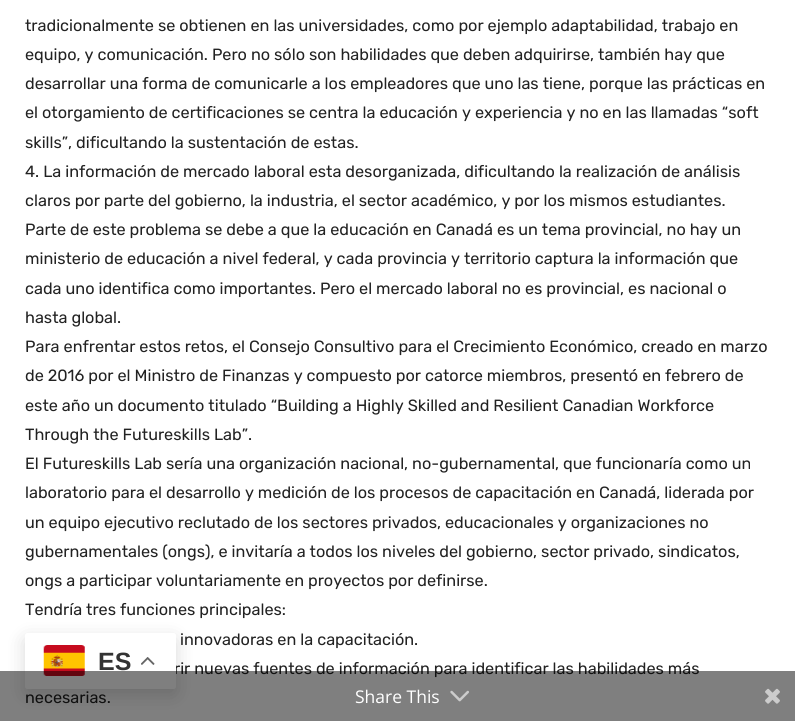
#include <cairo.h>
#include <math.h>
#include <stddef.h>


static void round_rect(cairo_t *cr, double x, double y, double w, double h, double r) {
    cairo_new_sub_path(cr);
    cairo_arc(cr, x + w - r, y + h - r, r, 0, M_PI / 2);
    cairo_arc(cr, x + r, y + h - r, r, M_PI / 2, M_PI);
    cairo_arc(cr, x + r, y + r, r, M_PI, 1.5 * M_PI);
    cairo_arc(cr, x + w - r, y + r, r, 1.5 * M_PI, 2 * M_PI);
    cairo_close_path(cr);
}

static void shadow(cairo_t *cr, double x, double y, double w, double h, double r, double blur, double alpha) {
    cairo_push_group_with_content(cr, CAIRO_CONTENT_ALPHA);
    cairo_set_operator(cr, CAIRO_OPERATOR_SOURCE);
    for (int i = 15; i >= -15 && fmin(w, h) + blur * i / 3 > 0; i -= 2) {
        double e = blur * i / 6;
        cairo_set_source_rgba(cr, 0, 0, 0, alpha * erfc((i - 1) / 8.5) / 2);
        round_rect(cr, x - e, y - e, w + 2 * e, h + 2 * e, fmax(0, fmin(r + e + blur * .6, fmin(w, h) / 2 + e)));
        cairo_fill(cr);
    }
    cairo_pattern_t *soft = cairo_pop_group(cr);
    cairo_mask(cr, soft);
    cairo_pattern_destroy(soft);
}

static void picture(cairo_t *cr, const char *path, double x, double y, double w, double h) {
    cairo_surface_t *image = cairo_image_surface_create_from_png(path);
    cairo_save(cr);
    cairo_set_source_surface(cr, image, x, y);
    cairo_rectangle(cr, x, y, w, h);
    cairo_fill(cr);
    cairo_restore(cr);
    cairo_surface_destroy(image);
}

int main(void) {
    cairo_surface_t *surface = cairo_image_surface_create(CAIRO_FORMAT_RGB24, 795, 721);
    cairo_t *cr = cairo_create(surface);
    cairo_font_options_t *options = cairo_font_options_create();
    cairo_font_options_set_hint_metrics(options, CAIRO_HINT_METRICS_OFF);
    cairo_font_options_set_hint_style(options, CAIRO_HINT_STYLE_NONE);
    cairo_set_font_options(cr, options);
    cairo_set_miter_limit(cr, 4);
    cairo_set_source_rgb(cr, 1, 1, 1);
    cairo_paint(cr);
    cairo_select_font_face(cr, "Rubik", CAIRO_FONT_SLANT_NORMAL, CAIRO_FONT_WEIGHT_NORMAL);
    cairo_set_font_size(cr, 16.25);
    cairo_set_source_rgb(cr, 0.133, 0.133, 0.133);
    cairo_move_to(cr, 25, 31);
    cairo_show_text(cr, "tradicionalmente se obtienen en las universidades, como por ejemplo adaptabilidad, trabajo en");
    cairo_move_to(cr, 25, 60);
    cairo_show_text(cr, "equipo, y comunicación. Pero no sólo son habilidades que deben adquirirse, también hay que");
    cairo_move_to(cr, 25, 89);
    cairo_show_text(cr, "desarrollar una forma de comunicarle a los empleadores que uno las tiene, porque las prácticas en");
    cairo_move_to(cr, 25, 118);
    cairo_show_text(cr, "el otorgamiento de certificaciones se centra la educación y experiencia y no en las llamadas “soft");
    cairo_move_to(cr, 25, 148);
    cairo_show_text(cr, "skills”, dificultando la sustentación de estas.");
    cairo_move_to(cr, 25, 177);
    cairo_show_text(cr, "4. La información de mercado laboral esta desorganizada, dificultando la realización de análisis");
    cairo_move_to(cr, 25, 206);
    cairo_show_text(cr, "claros por parte del gobierno, la industria, el sector académico, y por los mismos estudiantes.");
    cairo_move_to(cr, 25, 235);
    cairo_show_text(cr, "Parte de este problema se debe a que la educación en Canadá es un tema provincial, no hay un");
    cairo_move_to(cr, 25, 264);
    cairo_show_text(cr, "ministerio de educación a nivel federal, y cada provincia y territorio captura la información que");
    cairo_move_to(cr, 25, 294);
    cairo_show_text(cr, "cada uno identifica como importantes. Pero el mercado laboral no es provincial, es nacional o");
    cairo_move_to(cr, 25, 323);
    cairo_show_text(cr, "hasta global.");
    cairo_move_to(cr, 25, 352);
    cairo_show_text(cr, "Para enfrentar estos retos, el Consejo Consultivo para el Crecimiento Económico, creado en marzo");
    cairo_move_to(cr, 25, 381);
    cairo_show_text(cr, "de 2016 por el Ministro de Finanzas y compuesto por catorce miembros, presentó en febrero de");
    cairo_move_to(cr, 25, 411);
    cairo_show_text(cr, "este año un documento titulado “Building a Highly Skilled and Resilient Canadian Workforce");
    cairo_move_to(cr, 25, 440);
    cairo_show_text(cr, "Through the Futureskills Lab”.");
    cairo_move_to(cr, 25, 469);
    cairo_show_text(cr, "El Futureskills Lab sería una organización nacional, no-gubernamental, que funcionaría como un");
    cairo_move_to(cr, 25, 498);
    cairo_show_text(cr, "laboratorio para el desarrollo y medición de los procesos de capacitación en Canadá, liderada por");
    cairo_move_to(cr, 25, 528);
    cairo_show_text(cr, "un equipo ejecutivo reclutado de los sectores privados, educacionales y organizaciones no");
    cairo_move_to(cr, 25, 557);
    cairo_show_text(cr, "gubernamentales (ongs), e invitaría a todos los niveles del gobierno, sector privado, sindicatos,");
    cairo_move_to(cr, 25, 586);
    cairo_show_text(cr, "ongs a participar voluntariamente en proyectos por definirse.");
    cairo_move_to(cr, 25, 615);
    cairo_show_text(cr, "Tendría tres funciones principales:");
    cairo_move_to(cr, 180, 645);
    cairo_show_text(cr, "innovadoras en la capacitación.");
    cairo_move_to(cr, 174, 674);
    cairo_show_text(cr, "rir nuevas fuentes de información para identificar las habilidades más");
    cairo_move_to(cr, 25, 703);
    cairo_show_text(cr, "necesarias.");
    cairo_set_source_rgb(cr, 0, 0, 0);
    shadow(cr, 25, 639, 151, 56, 2.5, 9.5, 0.15);
    cairo_set_source_rgb(cr, 1, 1, 1);
    round_rect(cr, 25, 633, 151, 56, 2.5);
    cairo_fill(cr);
    picture(cr, "img1.png", 43, 645, 42, 31);
    cairo_select_font_face(cr, "Liberation Sans", CAIRO_FONT_SLANT_NORMAL, CAIRO_FONT_WEIGHT_BOLD);
    cairo_set_font_size(cr, 25);
    cairo_set_source_rgb(cr, 0.2, 0.2, 0.2);
    cairo_move_to(cr, 98, 670);
    cairo_show_text(cr, "ES");
    picture(cr, "img2.png", 141, 657, 14, 8);
    cairo_set_source_rgba(cr, 0, 0, 0, 0.5);
    cairo_rectangle(cr, 0, 671, 795, 50);
    cairo_fill(cr);
    cairo_select_font_face(cr, "Open Sans", CAIRO_FONT_SLANT_NORMAL, CAIRO_FONT_WEIGHT_NORMAL);
    cairo_set_font_size(cr, 17.5);
    cairo_set_source_rgb(cr, 1, 1, 1);
    cairo_move_to(cr, 355, 703);
    cairo_show_text(cr, "Share This");
    picture(cr, "img3.png", 450, 690, 19, 12);
    picture(cr, "img4.png", 765, 688, 15, 16);
    cairo_surface_write_to_png(surface, "page.png");
    cairo_font_options_destroy(options);
    cairo_destroy(cr);
    cairo_surface_destroy(surface);
    return 0;
}
